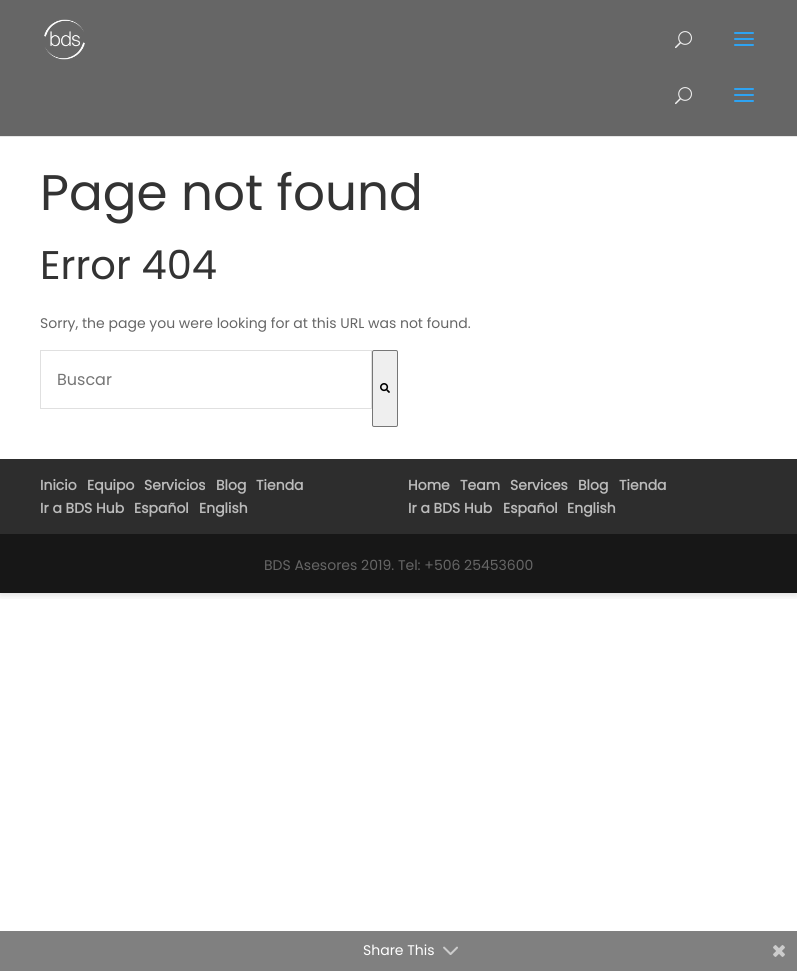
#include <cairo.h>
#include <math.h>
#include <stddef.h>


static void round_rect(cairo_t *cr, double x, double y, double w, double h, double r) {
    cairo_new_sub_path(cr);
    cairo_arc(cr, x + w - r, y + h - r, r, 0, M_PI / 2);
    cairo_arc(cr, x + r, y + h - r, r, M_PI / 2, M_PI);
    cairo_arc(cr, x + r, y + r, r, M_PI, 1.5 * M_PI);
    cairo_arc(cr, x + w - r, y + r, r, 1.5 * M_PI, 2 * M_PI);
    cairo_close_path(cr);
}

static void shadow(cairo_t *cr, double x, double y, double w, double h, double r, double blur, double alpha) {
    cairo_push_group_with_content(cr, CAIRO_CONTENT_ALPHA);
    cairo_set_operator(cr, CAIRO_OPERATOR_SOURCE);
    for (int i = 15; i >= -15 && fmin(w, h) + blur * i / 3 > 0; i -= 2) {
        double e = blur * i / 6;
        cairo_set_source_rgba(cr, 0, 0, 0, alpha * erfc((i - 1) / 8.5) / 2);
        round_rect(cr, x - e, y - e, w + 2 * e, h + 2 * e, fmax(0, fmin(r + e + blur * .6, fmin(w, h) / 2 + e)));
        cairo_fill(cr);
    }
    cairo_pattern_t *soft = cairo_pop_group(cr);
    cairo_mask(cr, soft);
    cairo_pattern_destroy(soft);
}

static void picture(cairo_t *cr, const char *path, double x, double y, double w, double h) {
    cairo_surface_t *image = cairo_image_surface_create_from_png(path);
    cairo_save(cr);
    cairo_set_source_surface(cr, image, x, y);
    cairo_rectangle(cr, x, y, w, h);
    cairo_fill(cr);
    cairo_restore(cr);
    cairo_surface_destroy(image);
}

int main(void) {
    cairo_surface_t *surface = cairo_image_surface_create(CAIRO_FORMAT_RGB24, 797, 971);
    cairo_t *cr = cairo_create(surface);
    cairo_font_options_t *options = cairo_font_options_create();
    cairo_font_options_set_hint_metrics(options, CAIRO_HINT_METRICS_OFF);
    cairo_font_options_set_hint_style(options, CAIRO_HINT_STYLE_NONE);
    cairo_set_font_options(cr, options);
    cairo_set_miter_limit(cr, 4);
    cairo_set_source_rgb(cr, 1, 1, 1);
    cairo_paint(cr);
    cairo_save(cr);
    cairo_rectangle(cr, 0, 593, 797, 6);
    cairo_clip(cr);
    cairo_set_source_rgb(cr, 0, 0, 0);
    shadow(cr, 0, 0, 797, 593, 0, 5, 0.2);
    cairo_restore(cr);
    cairo_set_source_rgb(cr, 0.902, 0.902, 0.902);
    cairo_rectangle(cr, 0, 136, 797, 1);
    cairo_fill(cr);
    cairo_set_source_rgb(cr, 0.4, 0.4, 0.4);
    cairo_rectangle(cr, 0, 0, 797, 136);
    cairo_fill(cr);
    picture(cr, "img1.png", 44, 19, 41, 41);
    picture(cr, "img2.png", 675, 31, 17, 18);
    picture(cr, "img3.png", 734, 32, 20, 14);
    picture(cr, "img2.png", 675, 87, 17, 18);
    picture(cr, "img3.png", 734, 88, 20, 14);
    cairo_select_font_face(cr, "Poppins", CAIRO_FONT_SLANT_NORMAL, CAIRO_FONT_WEIGHT_NORMAL);
    cairo_set_font_size(cr, 50);
    cairo_set_source_rgb(cr, 0.2, 0.2, 0.2);
    cairo_move_to(cr, 40, 210);
    cairo_show_text(cr, "Page not found");
    cairo_set_font_size(cr, 40);
    cairo_move_to(cr, 40, 279);
    cairo_show_text(cr, "Error 404");
    cairo_set_font_size(cr, 14);
    cairo_set_source_rgb(cr, 0.4, 0.4, 0.4);
    cairo_move_to(cr, 40, 328);
    cairo_show_text(cr, "Sorry, the page you were looking for at this URL was not found.");
    cairo_rectangle(cr, 40.5, 350.5, 331, 58);
    cairo_set_source_rgb(cr, 0.878, 0.878, 0.878);
    cairo_set_line_width(cr, 1);
    cairo_stroke(cr);
    cairo_set_font_size(cr, 16);
    cairo_set_source_rgb(cr, 0.459, 0.459, 0.459);
    cairo_move_to(cr, 57, 385);
    cairo_show_text(cr, "Buscar");
    cairo_set_source_rgb(cr, 0.937, 0.937, 0.937);
    round_rect(cr, 372.5, 350.5, 25, 76, 1.5);
    cairo_fill_preserve(cr);
    cairo_set_source_rgb(cr, 0.463, 0.463, 0.463);
    cairo_stroke(cr);
    picture(cr, "img4.png", 380, 383, 10, 10);
    cairo_set_source_rgb(cr, 0.176, 0.176, 0.176);
    cairo_rectangle(cr, 0, 459, 797, 75);
    cairo_fill(cr);
    cairo_select_font_face(cr, "Poppins", CAIRO_FONT_SLANT_NORMAL, CAIRO_FONT_WEIGHT_BOLD);
    cairo_set_font_size(cr, 14);
    cairo_set_source_rgb(cr, 0.733, 0.733, 0.733);
    cairo_move_to(cr, 40, 490);
    cairo_show_text(cr, "Inicio");
    cairo_move_to(cr, 87, 490);
    cairo_show_text(cr, "Equipo");
    cairo_move_to(cr, 144, 490);
    cairo_show_text(cr, "Servicios");
    cairo_move_to(cr, 216, 490);
    cairo_show_text(cr, "Blog");
    cairo_move_to(cr, 256, 490);
    cairo_show_text(cr, "Tienda");
    cairo_move_to(cr, 40, 513);
    cairo_show_text(cr, "Ir a BDS Hub");
    cairo_move_to(cr, 134, 513);
    cairo_show_text(cr, "Español");
    cairo_move_to(cr, 199, 513);
    cairo_show_text(cr, "English");
    cairo_move_to(cr, 408, 490);
    cairo_show_text(cr, "Home");
    cairo_move_to(cr, 460, 490);
    cairo_show_text(cr, "Team");
    cairo_move_to(cr, 510, 490);
    cairo_show_text(cr, "Services");
    cairo_move_to(cr, 578, 490);
    cairo_show_text(cr, "Blog");
    cairo_move_to(cr, 619, 490);
    cairo_show_text(cr, "Tienda");
    cairo_move_to(cr, 408, 513);
    cairo_show_text(cr, "Ir a BDS Hub");
    cairo_move_to(cr, 503, 513);
    cairo_show_text(cr, "Español");
    cairo_move_to(cr, 567, 513);
    cairo_show_text(cr, "English");
    cairo_set_source_rgb(cr, 0.09, 0.09, 0.09);
    cairo_rectangle(cr, 0, 534, 797, 59);
    cairo_fill(cr);
    cairo_select_font_face(cr, "Poppins", CAIRO_FONT_SLANT_NORMAL, CAIRO_FONT_WEIGHT_NORMAL);
    cairo_set_source_rgb(cr, 0.4, 0.4, 0.4);
    cairo_move_to(cr, 264, 570);
    cairo_show_text(cr, "BDS Asesores 2019. Tel: +506 25453600");
    cairo_set_source_rgb(cr, 0.502, 0.502, 0.502);
    cairo_rectangle(cr, 0, 931, 797, 40);
    cairo_fill(cr);
    cairo_set_source_rgb(cr, 1, 1, 1);
    cairo_move_to(cr, 363, 955);
    cairo_show_text(cr, "Share This");
    picture(cr, "img5.png", 443, 946, 15, 9);
    picture(cr, "img6.png", 773, 945, 12, 12);
    cairo_surface_write_to_png(surface, "page.png");
    cairo_font_options_destroy(options);
    cairo_destroy(cr);
    cairo_surface_destroy(surface);
    return 0;
}
